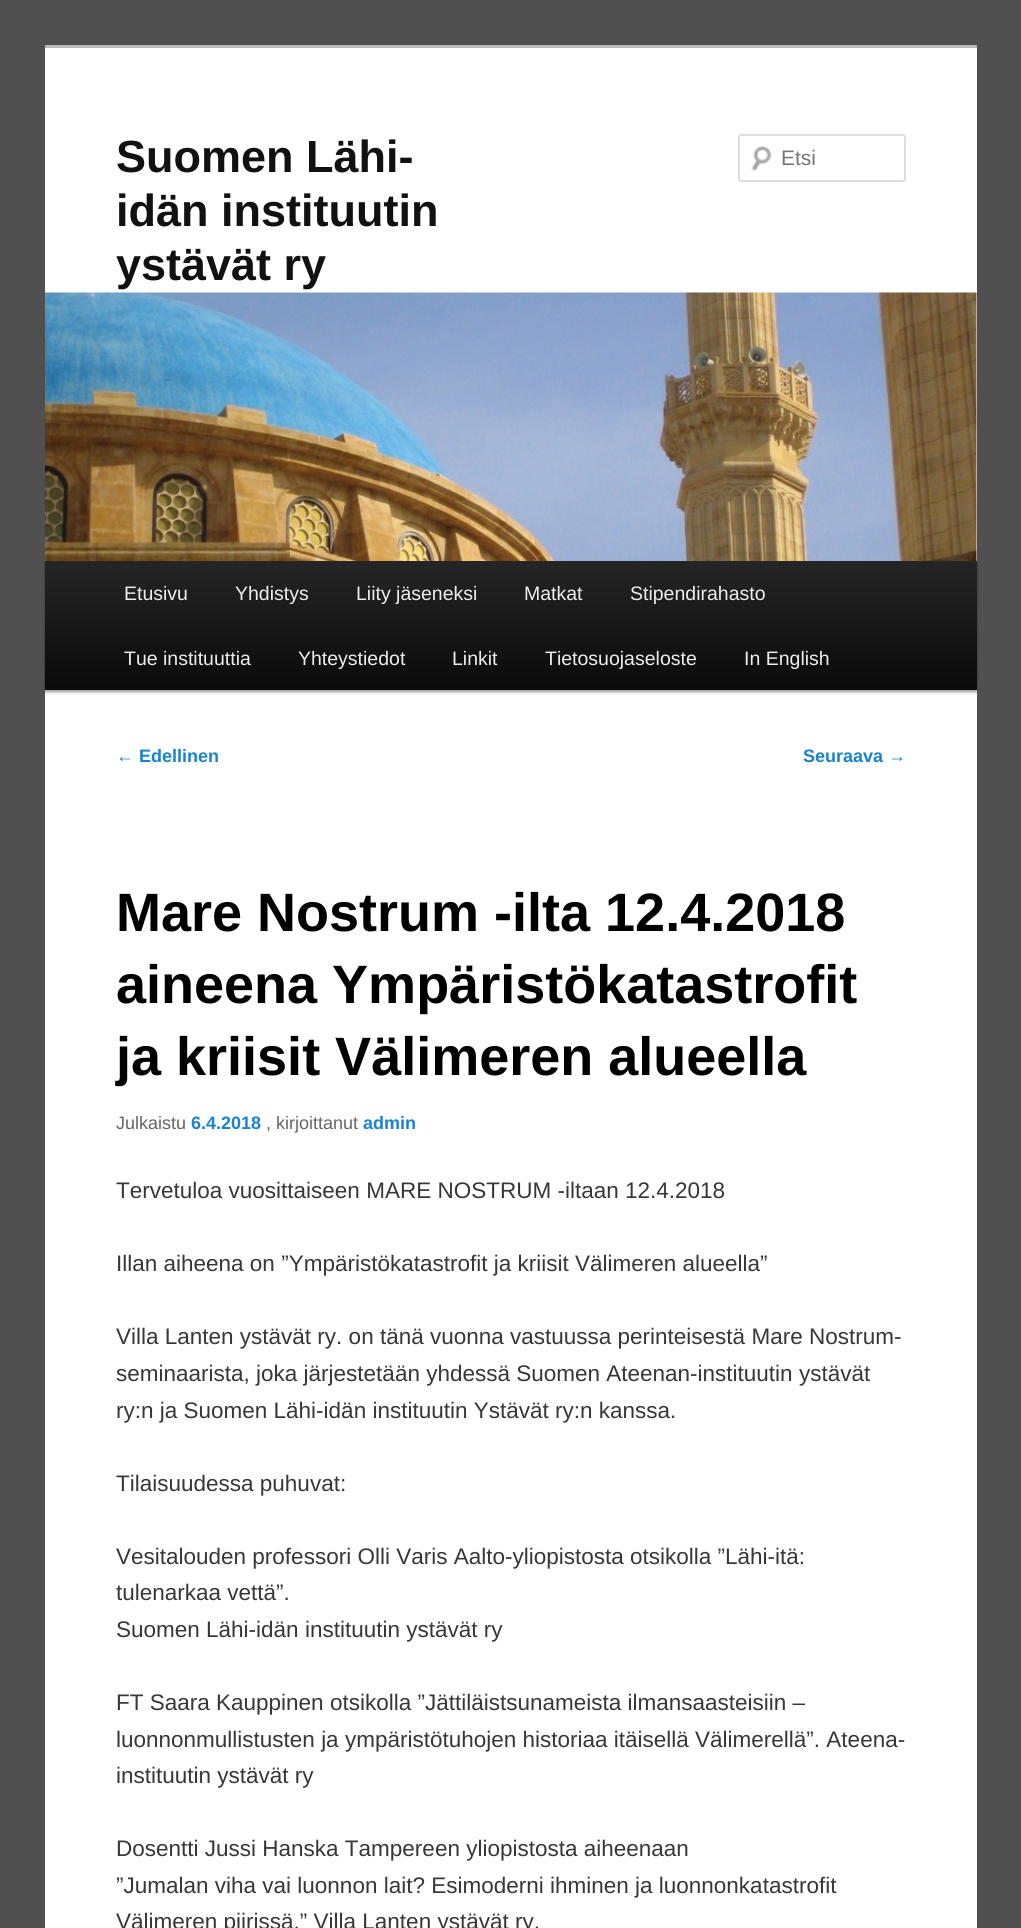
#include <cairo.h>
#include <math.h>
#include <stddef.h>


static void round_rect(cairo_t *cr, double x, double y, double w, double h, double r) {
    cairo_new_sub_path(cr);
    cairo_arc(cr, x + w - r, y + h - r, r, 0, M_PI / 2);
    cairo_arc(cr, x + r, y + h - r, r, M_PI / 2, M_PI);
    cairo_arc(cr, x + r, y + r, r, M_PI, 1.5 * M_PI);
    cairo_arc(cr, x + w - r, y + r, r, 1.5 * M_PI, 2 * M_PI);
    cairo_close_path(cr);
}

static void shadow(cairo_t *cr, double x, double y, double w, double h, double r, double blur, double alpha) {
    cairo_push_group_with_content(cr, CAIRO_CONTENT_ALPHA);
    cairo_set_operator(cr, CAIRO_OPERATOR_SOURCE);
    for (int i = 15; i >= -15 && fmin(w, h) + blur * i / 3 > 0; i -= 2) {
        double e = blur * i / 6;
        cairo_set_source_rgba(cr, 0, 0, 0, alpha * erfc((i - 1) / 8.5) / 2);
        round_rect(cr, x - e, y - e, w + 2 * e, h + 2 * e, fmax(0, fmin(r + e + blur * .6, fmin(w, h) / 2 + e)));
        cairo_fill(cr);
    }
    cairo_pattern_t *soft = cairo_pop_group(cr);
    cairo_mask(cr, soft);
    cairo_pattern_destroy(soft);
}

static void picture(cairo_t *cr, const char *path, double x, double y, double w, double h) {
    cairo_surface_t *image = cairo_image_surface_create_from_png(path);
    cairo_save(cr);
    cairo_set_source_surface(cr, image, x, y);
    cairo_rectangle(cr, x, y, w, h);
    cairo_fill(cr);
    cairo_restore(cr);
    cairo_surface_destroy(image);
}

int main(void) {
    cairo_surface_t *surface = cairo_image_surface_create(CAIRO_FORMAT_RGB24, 1021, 1928);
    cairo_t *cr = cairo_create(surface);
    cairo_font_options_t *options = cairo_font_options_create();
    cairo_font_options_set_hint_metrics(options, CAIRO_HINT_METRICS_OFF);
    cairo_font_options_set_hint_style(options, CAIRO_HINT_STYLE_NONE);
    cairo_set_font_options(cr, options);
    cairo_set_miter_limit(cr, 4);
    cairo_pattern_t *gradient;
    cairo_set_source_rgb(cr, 0.314, 0.314, 0.314);
    cairo_paint(cr);
    cairo_set_source_rgb(cr, 1, 1, 1);
    cairo_rectangle(cr, 45, 48, 932, 1880);
    cairo_fill(cr);
    cairo_set_source_rgb(cr, 0.733, 0.733, 0.733);
    cairo_rectangle(cr, 45, 45, 932, 3);
    cairo_fill(cr);
    cairo_select_font_face(cr, "Liberation Sans", CAIRO_FONT_SLANT_NORMAL, CAIRO_FONT_WEIGHT_BOLD);
    cairo_set_font_size(cr, 45);
    cairo_set_source_rgb(cr, 0.067, 0.067, 0.067);
    cairo_move_to(cr, 116, 172);
    cairo_show_text(cr, "Suomen Lähi-");
    cairo_move_to(cr, 116, 226);
    cairo_show_text(cr, "idän instituutin");
    cairo_move_to(cr, 116, 280);
    cairo_show_text(cr, "ystävät ry");
    picture(cr, "img1.png", 751, 145, 21, 27);
    round_rect(cr, 739, 135, 166, 46, 2);
    cairo_set_source_rgb(cr, 0.867, 0.867, 0.867);
    cairo_stroke(cr);
    cairo_select_font_face(cr, "Liberation Sans", CAIRO_FONT_SLANT_NORMAL, CAIRO_FONT_WEIGHT_NORMAL);
    cairo_set_font_size(cr, 21);
    cairo_set_source_rgb(cr, 0.459, 0.459, 0.459);
    cairo_move_to(cr, 781, 165);
    cairo_show_text(cr, "Etsi");
    cairo_set_source_rgb(cr, 0, 0, 0);
    shadow(cr, 45, 563, 932, 129, 0, 1.5, 0.4);
    picture(cr, "img2.png", 45, 292, 932, 269);
    gradient = cairo_pattern_create_linear(511, 561, 511, 690);
    cairo_pattern_add_color_stop_rgba(gradient, 0, 0.145, 0.145, 0.145, 1);
    cairo_pattern_add_color_stop_rgba(gradient, 1, 0.039, 0.039, 0.039, 1);
    cairo_set_source(cr, gradient);
    cairo_pattern_destroy(gradient);
    cairo_rectangle(cr, 45, 561, 932, 129);
    cairo_fill(cr);
    cairo_set_font_size(cr, 19.5);
    cairo_set_source_rgb(cr, 0.933, 0.933, 0.933);
    cairo_move_to(cr, 124, 600);
    cairo_show_text(cr, "Etusivu");
    cairo_move_to(cr, 235, 600);
    cairo_show_text(cr, "Yhdistys");
    cairo_move_to(cr, 356, 600);
    cairo_show_text(cr, "Liity jäseneksi");
    cairo_move_to(cr, 524, 600);
    cairo_show_text(cr, "Matkat");
    cairo_move_to(cr, 630, 600);
    cairo_show_text(cr, "Stipendirahasto");
    cairo_move_to(cr, 124, 665);
    cairo_show_text(cr, "Tue instituuttia");
    cairo_move_to(cr, 298, 665);
    cairo_show_text(cr, "Yhteystiedot");
    cairo_move_to(cr, 452, 665);
    cairo_show_text(cr, "Linkit");
    cairo_move_to(cr, 545, 665);
    cairo_show_text(cr, "Tietosuojaseloste");
    cairo_move_to(cr, 744, 665);
    cairo_show_text(cr, "In English");
    cairo_set_font_size(cr, 18);
    cairo_set_source_rgb(cr, 0.098, 0.51, 0.82);
    cairo_move_to(cr, 116, 762);
    cairo_show_text(cr, "←");
    cairo_select_font_face(cr, "Liberation Sans", CAIRO_FONT_SLANT_NORMAL, CAIRO_FONT_WEIGHT_BOLD);
    cairo_move_to(cr, 139, 762);
    cairo_show_text(cr, "Edellinen");
    cairo_move_to(cr, 803, 762);
    cairo_show_text(cr, "Seuraava");
    cairo_select_font_face(cr, "Liberation Sans", CAIRO_FONT_SLANT_NORMAL, CAIRO_FONT_WEIGHT_NORMAL);
    cairo_move_to(cr, 888, 762);
    cairo_show_text(cr, "→");
    cairo_select_font_face(cr, "Liberation Sans", CAIRO_FONT_SLANT_NORMAL, CAIRO_FONT_WEIGHT_BOLD);
    cairo_set_font_size(cr, 54);
    cairo_set_source_rgb(cr, 0, 0, 0);
    cairo_move_to(cr, 116, 931);
    cairo_show_text(cr, "Mare Nostrum -ilta 12.4.2018");
    cairo_move_to(cr, 116, 1003);
    cairo_show_text(cr, "aineena Ympäristökatastrofit");
    cairo_move_to(cr, 116, 1075);
    cairo_show_text(cr, "ja kriisit Välimeren alueella");
    cairo_select_font_face(cr, "Liberation Sans", CAIRO_FONT_SLANT_NORMAL, CAIRO_FONT_WEIGHT_NORMAL);
    cairo_set_font_size(cr, 18);
    cairo_set_source_rgb(cr, 0.4, 0.4, 0.4);
    cairo_move_to(cr, 116, 1129);
    cairo_show_text(cr, "Julkaistu");
    cairo_select_font_face(cr, "Liberation Sans", CAIRO_FONT_SLANT_NORMAL, CAIRO_FONT_WEIGHT_BOLD);
    cairo_set_source_rgb(cr, 0.098, 0.51, 0.82);
    cairo_move_to(cr, 191, 1129);
    cairo_show_text(cr, "6.4.2018");
    cairo_select_font_face(cr, "Liberation Sans", CAIRO_FONT_SLANT_NORMAL, CAIRO_FONT_WEIGHT_NORMAL);
    cairo_set_source_rgb(cr, 0.4, 0.4, 0.4);
    cairo_move_to(cr, 266, 1129);
    cairo_show_text(cr, ", kirjoittanut");
    cairo_select_font_face(cr, "Liberation Sans", CAIRO_FONT_SLANT_NORMAL, CAIRO_FONT_WEIGHT_BOLD);
    cairo_set_source_rgb(cr, 0.098, 0.51, 0.82);
    cairo_move_to(cr, 363, 1129);
    cairo_show_text(cr, "admin");
    cairo_select_font_face(cr, "Liberation Sans", CAIRO_FONT_SLANT_NORMAL, CAIRO_FONT_WEIGHT_NORMAL);
    cairo_set_font_size(cr, 22.5);
    cairo_set_source_rgb(cr, 0.216, 0.216, 0.216);
    cairo_move_to(cr, 116, 1198);
    cairo_show_text(cr, "Tervetuloa vuosittaiseen MARE NOSTRUM -iltaan 12.4.2018");
    cairo_move_to(cr, 116, 1271);
    cairo_show_text(cr, "Illan aiheena on ”Ympäristökatastrofit ja kriisit Välimeren alueella”");
    cairo_move_to(cr, 116, 1344);
    cairo_show_text(cr, "Villa Lanten ystävät ry. on tänä vuonna vastuussa perinteisestä Mare Nostrum-");
    cairo_move_to(cr, 116, 1381);
    cairo_show_text(cr, "seminaarista, joka järjestetään yhdessä Suomen Ateenan-instituutin ystävät");
    cairo_move_to(cr, 116, 1418);
    cairo_show_text(cr, "ry:n ja Suomen Lähi-idän instituutin Ystävät ry:n kanssa.");
    cairo_move_to(cr, 116, 1491);
    cairo_show_text(cr, "Tilaisuudessa puhuvat:");
    cairo_move_to(cr, 116, 1564);
    cairo_show_text(cr, "Vesitalouden professori Olli Varis Aalto-yliopistosta otsikolla ”Lähi-itä:");
    cairo_move_to(cr, 116, 1600);
    cairo_show_text(cr, "tulenarkaa vettä”.");
    cairo_move_to(cr, 116, 1637);
    cairo_show_text(cr, "Suomen Lähi-idän instituutin ystävät ry");
    cairo_move_to(cr, 116, 1710);
    cairo_show_text(cr, "FT Saara Kauppinen otsikolla ”Jättiläistsunameista ilmansaasteisiin –");
    cairo_move_to(cr, 116, 1747);
    cairo_show_text(cr, "luonnonmullistusten ja ympäristötuhojen historiaa itäisellä Välimerellä”. Ateena-");
    cairo_move_to(cr, 116, 1783);
    cairo_show_text(cr, "instituutin ystävät ry");
    cairo_move_to(cr, 116, 1856);
    cairo_show_text(cr, "Dosentti Jussi Hanska Tampereen yliopistosta aiheenaan");
    cairo_move_to(cr, 116, 1893);
    cairo_show_text(cr, "”Jumalan viha vai luonnon lait? Esimoderni ihminen ja luonnonkatastrofit");
    cairo_move_to(cr, 116, 1929);
    cairo_show_text(cr, "Välimeren piirissä.” Villa Lanten ystävät ry.");
    cairo_surface_write_to_png(surface, "page.png");
    cairo_font_options_destroy(options);
    cairo_destroy(cr);
    cairo_surface_destroy(surface);
    return 0;
}
